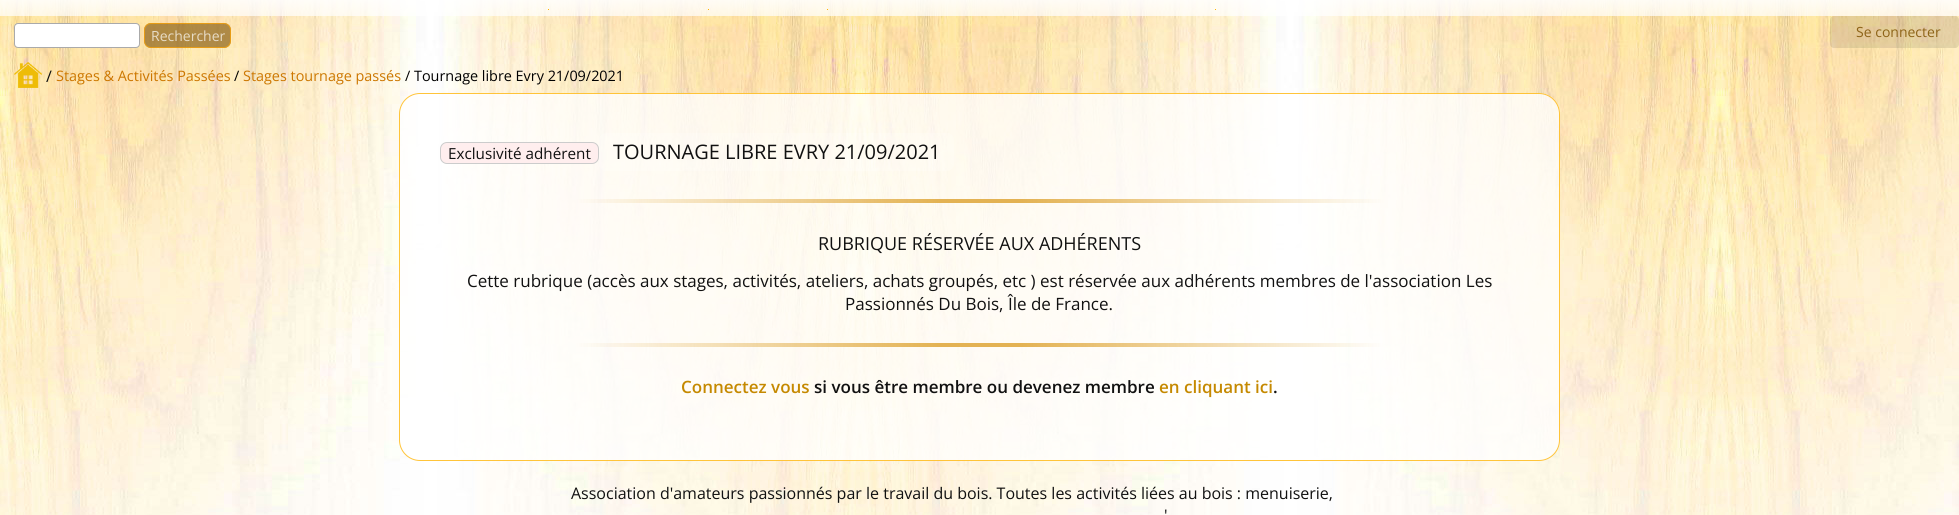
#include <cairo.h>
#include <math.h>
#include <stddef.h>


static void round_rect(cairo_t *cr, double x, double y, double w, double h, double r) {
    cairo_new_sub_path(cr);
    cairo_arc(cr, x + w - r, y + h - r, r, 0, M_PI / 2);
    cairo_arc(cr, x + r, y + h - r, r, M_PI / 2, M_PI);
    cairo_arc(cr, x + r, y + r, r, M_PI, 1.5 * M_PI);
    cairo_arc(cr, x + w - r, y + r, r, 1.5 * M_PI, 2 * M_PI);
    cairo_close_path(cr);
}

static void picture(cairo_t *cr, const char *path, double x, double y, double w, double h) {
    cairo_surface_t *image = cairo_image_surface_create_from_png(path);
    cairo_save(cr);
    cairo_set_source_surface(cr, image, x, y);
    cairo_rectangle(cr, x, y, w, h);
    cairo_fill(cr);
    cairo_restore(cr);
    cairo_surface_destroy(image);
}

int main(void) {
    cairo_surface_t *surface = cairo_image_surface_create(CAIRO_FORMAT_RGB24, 1959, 515);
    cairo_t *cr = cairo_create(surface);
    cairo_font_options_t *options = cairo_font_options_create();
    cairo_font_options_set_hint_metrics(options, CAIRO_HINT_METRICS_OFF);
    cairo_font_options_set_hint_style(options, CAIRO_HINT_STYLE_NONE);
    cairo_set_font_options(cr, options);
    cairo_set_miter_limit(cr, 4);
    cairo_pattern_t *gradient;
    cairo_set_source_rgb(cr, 1, 1, 1);
    cairo_paint(cr);
    picture(cr, "img1.png", 0, 0, 1959, 515);
    cairo_set_source_rgb(cr, 1, 1, 1);
    round_rect(cr, 14.5, 23.5, 125, 24, 3.5);
    cairo_fill_preserve(cr);
    cairo_set_source_rgb(cr, 0.667, 0.667, 0.667);
    cairo_set_line_width(cr, 1);
    cairo_stroke(cr);
    cairo_set_source_rgba(cr, 0.553, 0.388, 0.09, 0.7);
    round_rect(cr, 144, 23, 87, 25, 7);
    cairo_fill(cr);
    round_rect(cr, 144.5, 23.5, 86, 24, 6.5);
    cairo_set_source_rgba(cr, 1, 0.647, 0.004, 0.7);
    cairo_stroke(cr);
    cairo_select_font_face(cr, "Open Sans", CAIRO_FONT_SLANT_NORMAL, CAIRO_FONT_WEIGHT_NORMAL);
    cairo_set_font_size(cr, 14);
    cairo_set_source_rgb(cr, 0.906, 0.863, 0.78);
    cairo_move_to(cr, 151, 41);
    cairo_show_text(cr, "Rechercher");
    cairo_save(cr);
    cairo_rectangle(cr, 548, 9, 1, 1);
    cairo_clip(cr);
    round_rect(cr, 541.5, 9.5, 149, 35, 6.5);
    cairo_set_source_rgb(cr, 1, 0.702, 0.027);
    cairo_stroke(cr);
    cairo_restore(cr);
    cairo_save(cr);
    cairo_rectangle(cr, 708, 9, 1, 1);
    cairo_clip(cr);
    round_rect(cr, 701.5, 9.5, 149, 55, 6.5);
    cairo_set_source_rgb(cr, 1, 0.702, 0.027);
    cairo_stroke(cr);
    cairo_restore(cr);
    cairo_save(cr);
    cairo_rectangle(cr, 827, 9, 1, 1);
    cairo_clip(cr);
    round_rect(cr, 820.5, 9.5, 149, 35, 6.5);
    cairo_set_source_rgb(cr, 1, 0.702, 0.027);
    cairo_stroke(cr);
    cairo_restore(cr);
    cairo_save(cr);
    cairo_rectangle(cr, 1215, 9, 1, 1);
    cairo_clip(cr);
    round_rect(cr, 1208.5, 9.5, 149, 55, 6.5);
    cairo_set_source_rgb(cr, 1, 0.702, 0.027);
    cairo_stroke(cr);
    cairo_restore(cr);
    cairo_set_source_rgba(cr, 0, 0, 0, 0.1);
    round_rect(cr, 1830, 16, 129, 32, 4);
    cairo_fill(cr);
    cairo_set_source_rgb(cr, 0.553, 0.388, 0.09);
    cairo_move_to(cr, 1856, 37);
    cairo_show_text(cr, "Se connecter");
    picture(cr, "img2.png", 14, 62, 28, 26);
    cairo_set_font_size(cr, 16);
    cairo_set_source_rgb(cr, 0.067, 0.067, 0.067);
    cairo_move_to(cr, 46, 82);
    cairo_show_text(cr, "/");
    cairo_set_font_size(cr, 14.4);
    cairo_set_source_rgb(cr, 0.8, 0.467, 0);
    cairo_move_to(cr, 56, 81);
    cairo_show_text(cr, "Stages & Activités Passées");
    cairo_set_source_rgb(cr, 0, 0, 0);
    cairo_move_to(cr, 234, 81);
    cairo_show_text(cr, "/");
    cairo_set_source_rgb(cr, 0.8, 0.467, 0);
    cairo_move_to(cr, 243, 81);
    cairo_show_text(cr, "Stages tournage passés");
    cairo_set_source_rgb(cr, 0, 0, 0);
    cairo_move_to(cr, 405, 81);
    cairo_show_text(cr, "/ Tournage libre Evry 21/09/2021");
    cairo_set_source_rgba(cr, 1, 1, 1, 0.77);
    round_rect(cr, 399, 93, 1161, 368, 21);
    cairo_fill(cr);
    round_rect(cr, 399.5, 93.5, 1160, 367, 20.5);
    cairo_set_source_rgba(cr, 1, 0.702, 0, 0.77);
    cairo_stroke(cr);
    cairo_set_source_rgb(cr, 1, 0.933, 0.933);
    round_rect(cr, 440.5, 142.5, 158, 21, 6.5);
    cairo_fill_preserve(cr);
    cairo_set_source_rgb(cr, 0.8, 0.8, 0.8);
    cairo_stroke(cr);
    cairo_set_font_size(cr, 15.25);
    cairo_set_source_rgb(cr, 0.067, 0.067, 0.067);
    cairo_move_to(cr, 448, 159);
    cairo_show_text(cr, "Exclusivité adhérent");
    cairo_set_source_rgba(cr, 1, 1, 1, 0.2);
    round_rect(cr, 599, 133, 355, 38, 7);
    cairo_fill(cr);
    cairo_set_font_size(cr, 20);
    cairo_set_source_rgb(cr, 0.067, 0.067, 0.067);
    cairo_move_to(cr, 613, 159);
    cairo_show_text(cr, "TOURNAGE LIBRE EVRY 21/09/2021");
    gradient = cairo_pattern_create_radial(980, 201, 0, 980, 201, 405);
    cairo_pattern_add_color_stop_rgba(gradient, 0.1, 0.89, 0.698, 0.325, 1);
    cairo_pattern_add_color_stop_rgba(gradient, 1, 0.89, 0.698, 0.325, 0);
    cairo_set_source(cr, gradient);
    cairo_pattern_destroy(gradient);
    cairo_rectangle(cr, 575, 199, 810, 4);
    cairo_fill(cr);
    cairo_set_font_size(cr, 18);
    cairo_set_source_rgb(cr, 0.067, 0.067, 0.067);
    cairo_move_to(cr, 818, 250);
    cairo_show_text(cr, "RUBRIQUE RÉSERVÉE AUX ADHÉRENTS");
    cairo_set_font_size(cr, 17);
    cairo_move_to(cr, 467, 287);
    cairo_show_text(cr, "Cette rubrique (accès aux stages, activités, ateliers, achats groupés, etc ) est réservée aux adhérents membres de l'association Les");
    cairo_move_to(cr, 845, 310);
    cairo_show_text(cr, "Passionnés Du Bois, Île de France.");
    gradient = cairo_pattern_create_radial(980, 345, 0, 980, 345, 405);
    cairo_pattern_add_color_stop_rgba(gradient, 0.1, 0.89, 0.698, 0.325, 1);
    cairo_pattern_add_color_stop_rgba(gradient, 1, 0.89, 0.698, 0.325, 0);
    cairo_set_source(cr, gradient);
    cairo_pattern_destroy(gradient);
    cairo_rectangle(cr, 575, 343, 810, 4);
    cairo_fill(cr);
    cairo_select_font_face(cr, "Open Sans SemiBold", CAIRO_FONT_SLANT_NORMAL, CAIRO_FONT_WEIGHT_NORMAL);
    cairo_set_source_rgb(cr, 0.773, 0.537, 0);
    cairo_move_to(cr, 681, 393);
    cairo_show_text(cr, "Connectez vous");
    cairo_set_source_rgb(cr, 0.067, 0.067, 0.067);
    cairo_move_to(cr, 814, 393);
    cairo_show_text(cr, "si vous être membre ou devenez membre");
    cairo_set_source_rgb(cr, 0.773, 0.537, 0);
    cairo_move_to(cr, 1159, 393);
    cairo_show_text(cr, "en cliquant ici");
    cairo_set_source_rgb(cr, 0.067, 0.067, 0.067);
    cairo_move_to(cr, 1273, 393);
    cairo_show_text(cr, ".");
    cairo_select_font_face(cr, "Open Sans", CAIRO_FONT_SLANT_NORMAL, CAIRO_FONT_WEIGHT_NORMAL);
    cairo_set_font_size(cr, 16);
    cairo_move_to(cr, 571, 499);
    cairo_show_text(cr, "Association d'amateurs passionnés par le travail du bois. Toutes les activités liées au bois : menuiserie,");
    cairo_move_to(cr, 1164, 521);
    cairo_show_text(cr, "'");
    cairo_surface_write_to_png(surface, "page.png");
    cairo_font_options_destroy(options);
    cairo_destroy(cr);
    cairo_surface_destroy(surface);
    return 0;
}
